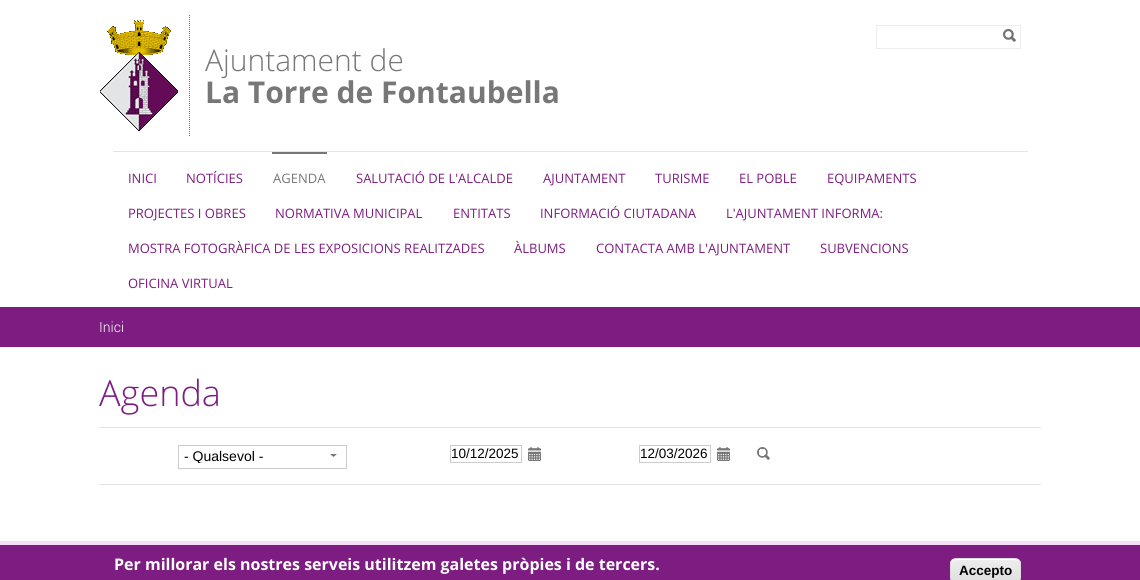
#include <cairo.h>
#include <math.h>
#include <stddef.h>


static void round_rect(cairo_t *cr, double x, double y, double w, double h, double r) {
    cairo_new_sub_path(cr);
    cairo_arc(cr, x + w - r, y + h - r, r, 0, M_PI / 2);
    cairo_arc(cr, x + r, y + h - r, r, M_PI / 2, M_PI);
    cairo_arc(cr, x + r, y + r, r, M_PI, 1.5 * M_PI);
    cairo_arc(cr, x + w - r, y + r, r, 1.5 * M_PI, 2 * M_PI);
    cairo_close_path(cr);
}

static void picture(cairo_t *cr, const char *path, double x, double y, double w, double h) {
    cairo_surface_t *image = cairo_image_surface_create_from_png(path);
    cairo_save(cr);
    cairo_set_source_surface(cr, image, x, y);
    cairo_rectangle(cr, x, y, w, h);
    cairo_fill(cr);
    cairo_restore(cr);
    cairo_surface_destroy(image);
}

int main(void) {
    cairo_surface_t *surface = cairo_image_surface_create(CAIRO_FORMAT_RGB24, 1140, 580);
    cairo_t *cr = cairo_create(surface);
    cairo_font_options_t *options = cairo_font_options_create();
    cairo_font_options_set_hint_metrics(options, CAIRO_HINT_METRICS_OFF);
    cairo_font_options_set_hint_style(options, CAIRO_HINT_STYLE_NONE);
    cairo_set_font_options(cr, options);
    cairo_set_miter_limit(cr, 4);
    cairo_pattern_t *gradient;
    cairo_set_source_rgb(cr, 1, 1, 1);
    cairo_paint(cr);
    cairo_rectangle(cr, 876.5, 25.5, 144, 23);
    cairo_set_source_rgb(cr, 0.929, 0.929, 0.929);
    cairo_set_line_width(cr, 1);
    cairo_stroke(cr);
    picture(cr, "img1.png", 1003, 29, 13, 13);
    picture(cr, "img2.png", 100, 20, 78, 111);
    cairo_new_path(cr);
    cairo_move_to(cr, 189.5, 15);
    cairo_line_to(cr, 189.5, 136);
    cairo_set_source_rgb(cr, 0.467, 0.467, 0.467);
    cairo_set_dash(cr, (double[]){1, 1}, 2, 0);
    cairo_stroke(cr);
    cairo_select_font_face(cr, "Open Sans Light", CAIRO_FONT_SLANT_NORMAL, CAIRO_FONT_WEIGHT_NORMAL);
    cairo_set_font_size(cr, 30);
    cairo_move_to(cr, 205, 71);
    cairo_show_text(cr, "Ajuntament de");
    cairo_select_font_face(cr, "Open Sans", CAIRO_FONT_SLANT_NORMAL, CAIRO_FONT_WEIGHT_BOLD);
    cairo_move_to(cr, 205, 103);
    cairo_show_text(cr, "La Torre de Fontaubella");
    cairo_set_source_rgb(cr, 0.894, 0.894, 0.894);
    cairo_rectangle(cr, 113, 151, 915, 1);
    cairo_fill(cr);
    cairo_select_font_face(cr, "Open Sans", CAIRO_FONT_SLANT_NORMAL, CAIRO_FONT_WEIGHT_NORMAL);
    cairo_set_font_size(cr, 13);
    cairo_set_source_rgb(cr, 0.49, 0.114, 0.506);
    cairo_move_to(cr, 128, 183);
    cairo_show_text(cr, "INICI");
    cairo_move_to(cr, 186, 183);
    cairo_show_text(cr, "NOTÍCIES");
    cairo_set_source_rgb(cr, 0.467, 0.467, 0.467);
    cairo_rectangle(cr, 272, 152, 55, 2);
    cairo_fill(cr);
    cairo_move_to(cr, 273, 183);
    cairo_show_text(cr, "AGENDA");
    cairo_set_source_rgb(cr, 0.49, 0.114, 0.506);
    cairo_move_to(cr, 356, 183);
    cairo_show_text(cr, "SALUTACIÓ DE L'ALCALDE");
    cairo_move_to(cr, 543, 183);
    cairo_show_text(cr, "AJUNTAMENT");
    cairo_move_to(cr, 655, 183);
    cairo_show_text(cr, "TURISME");
    cairo_move_to(cr, 739, 183);
    cairo_show_text(cr, "EL POBLE");
    cairo_move_to(cr, 827, 183);
    cairo_show_text(cr, "EQUIPAMENTS");
    cairo_move_to(cr, 128, 218);
    cairo_show_text(cr, "PROJECTES I OBRES");
    cairo_move_to(cr, 275, 218);
    cairo_show_text(cr, "NORMATIVA MUNICIPAL");
    cairo_move_to(cr, 453, 218);
    cairo_show_text(cr, "ENTITATS");
    cairo_move_to(cr, 540, 218);
    cairo_show_text(cr, "INFORMACIÓ CIUTADANA");
    cairo_move_to(cr, 726, 218);
    cairo_show_text(cr, "L'AJUNTAMENT INFORMA:");
    cairo_move_to(cr, 128, 253);
    cairo_show_text(cr, "MOSTRA FOTOGRÀFICA DE LES EXPOSICIONS REALITZADES");
    cairo_move_to(cr, 514, 253);
    cairo_show_text(cr, "ÀLBUMS");
    cairo_move_to(cr, 596, 253);
    cairo_show_text(cr, "CONTACTA AMB L'AJUNTAMENT");
    cairo_move_to(cr, 820, 253);
    cairo_show_text(cr, "SUBVENCIONS");
    cairo_move_to(cr, 128, 288);
    cairo_show_text(cr, "OFICINA VIRTUAL");
    cairo_rectangle(cr, 0, 307, 1140, 40);
    cairo_fill(cr);
    cairo_select_font_face(cr, "Roboto Light", CAIRO_FONT_SLANT_NORMAL, CAIRO_FONT_WEIGHT_NORMAL);
    cairo_set_font_size(cr, 14);
    cairo_set_source_rgb(cr, 1, 1, 1);
    cairo_move_to(cr, 99, 332);
    cairo_show_text(cr, "Inici");
    cairo_select_font_face(cr, "Open Sans Light", CAIRO_FONT_SLANT_NORMAL, CAIRO_FONT_WEIGHT_NORMAL);
    cairo_set_font_size(cr, 36);
    cairo_set_source_rgb(cr, 0.49, 0.114, 0.506);
    cairo_move_to(cr, 99, 406);
    cairo_show_text(cr, "Agenda");
    cairo_set_source_rgb(cr, 0.894, 0.894, 0.894);
    cairo_rectangle(cr, 99, 427, 942, 1);
    cairo_fill(cr);
    cairo_rectangle(cr, 99, 484, 942, 1);
    cairo_fill(cr);
    picture(cr, "img3.png", 330, 454, 7, 3);
    cairo_rectangle(cr, 178.5, 445.5, 168, 23);
    cairo_set_source_rgb(cr, 0.8, 0.8, 0.8);
    cairo_set_dash(cr, NULL, 0, 0);
    cairo_stroke(cr);
    cairo_save(cr);
    cairo_rectangle(cr, 184, 449, 162, 14);
    cairo_clip(cr);
    cairo_select_font_face(cr, "Liberation Sans", CAIRO_FONT_SLANT_NORMAL, CAIRO_FONT_WEIGHT_NORMAL);
    cairo_set_font_size(cr, 14);
    cairo_set_source_rgb(cr, 0, 0, 0);
    cairo_move_to(cr, 184, 461);
    cairo_show_text(cr, "- Qualsevol -");
    cairo_restore(cr);
    picture(cr, "img4.png", 528, 447, 13, 14);
    cairo_rectangle(cr, 450.5, 445.5, 71, 17);
    cairo_stroke(cr);
    cairo_select_font_face(cr, "Liberation Sans", CAIRO_FONT_SLANT_NORMAL, CAIRO_FONT_WEIGHT_NORMAL);
    cairo_set_font_size(cr, 13.5);
    cairo_set_source_rgb(cr, 0, 0, 0);
    cairo_move_to(cr, 451, 458);
    cairo_show_text(cr, "10/12/2025");
    picture(cr, "img4.png", 717, 447, 13, 14);
    cairo_rectangle(cr, 639.5, 445.5, 71, 17);
    cairo_set_source_rgb(cr, 0.8, 0.8, 0.8);
    cairo_stroke(cr);
    cairo_set_source_rgb(cr, 0, 0, 0);
    cairo_move_to(cr, 640, 458);
    cairo_show_text(cr, "12/03/2026");
    picture(cr, "img5.png", 757, 447, 13, 13);
    cairo_set_source_rgb(cr, 0.49, 0.114, 0.506);
    cairo_rectangle(cr, 0, 545, 1140, 35);
    cairo_fill(cr);
    cairo_set_source_rgb(cr, 0.973, 0.859, 0.98);
    cairo_rectangle(cr, 0, 541, 1140, 4);
    cairo_fill(cr);
    cairo_select_font_face(cr, "Open Sans", CAIRO_FONT_SLANT_NORMAL, CAIRO_FONT_WEIGHT_BOLD);
    cairo_set_font_size(cr, 16);
    cairo_set_source_rgb(cr, 1, 1, 1);
    cairo_move_to(cr, 114, 570);
    cairo_show_text(cr, "Per millorar els nostres serveis utilitzem galetes pròpies i de tercers.");
    cairo_save(cr);
    round_rect(cr, 950, 558, 71, 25, 6);
    cairo_clip(cr);
    gradient = cairo_pattern_create_linear(986, 559, 986, 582);
    cairo_pattern_add_color_stop_rgba(gradient, 0.05, 0.929, 0.929, 0.929, 1);
    cairo_pattern_add_color_stop_rgba(gradient, 1, 0.875, 0.875, 0.875, 1);
    cairo_set_source(cr, gradient);
    cairo_pattern_destroy(gradient);
    cairo_rectangle(cr, 950, 559, 71, 21);
    cairo_fill(cr);
    cairo_restore(cr);
    cairo_new_path(cr);
    cairo_move_to(cr, 956, 560);
    cairo_line_to(cr, 1015, 560);
    cairo_curve_to(cr, 1018, 560, 1020, 562, 1020, 565);
    cairo_curve_to(cr, 1020, 557, 1011, 559, 1005, 559);
    cairo_line_to(cr, 966, 559);
    cairo_curve_to(cr, 960, 559, 951, 557, 951, 565);
    cairo_curve_to(cr, 951, 562, 953, 560, 956, 560);
    cairo_close_path(cr);
    cairo_fill(cr);
    round_rect(cr, 950.5, 558.5, 70, 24, 5.5);
    cairo_set_source_rgb(cr, 0.863, 0.863, 0.863);
    cairo_stroke(cr);
    cairo_select_font_face(cr, "Liberation Sans", CAIRO_FONT_SLANT_NORMAL, CAIRO_FONT_WEIGHT_BOLD);
    cairo_set_font_size(cr, 13.5);
    cairo_set_source_rgb(cr, 0, 0, 0);
    cairo_move_to(cr, 959, 575);
    cairo_show_text(cr, "Accepto");
    cairo_surface_write_to_png(surface, "page.png");
    cairo_font_options_destroy(options);
    cairo_destroy(cr);
    cairo_surface_destroy(surface);
    return 0;
}
